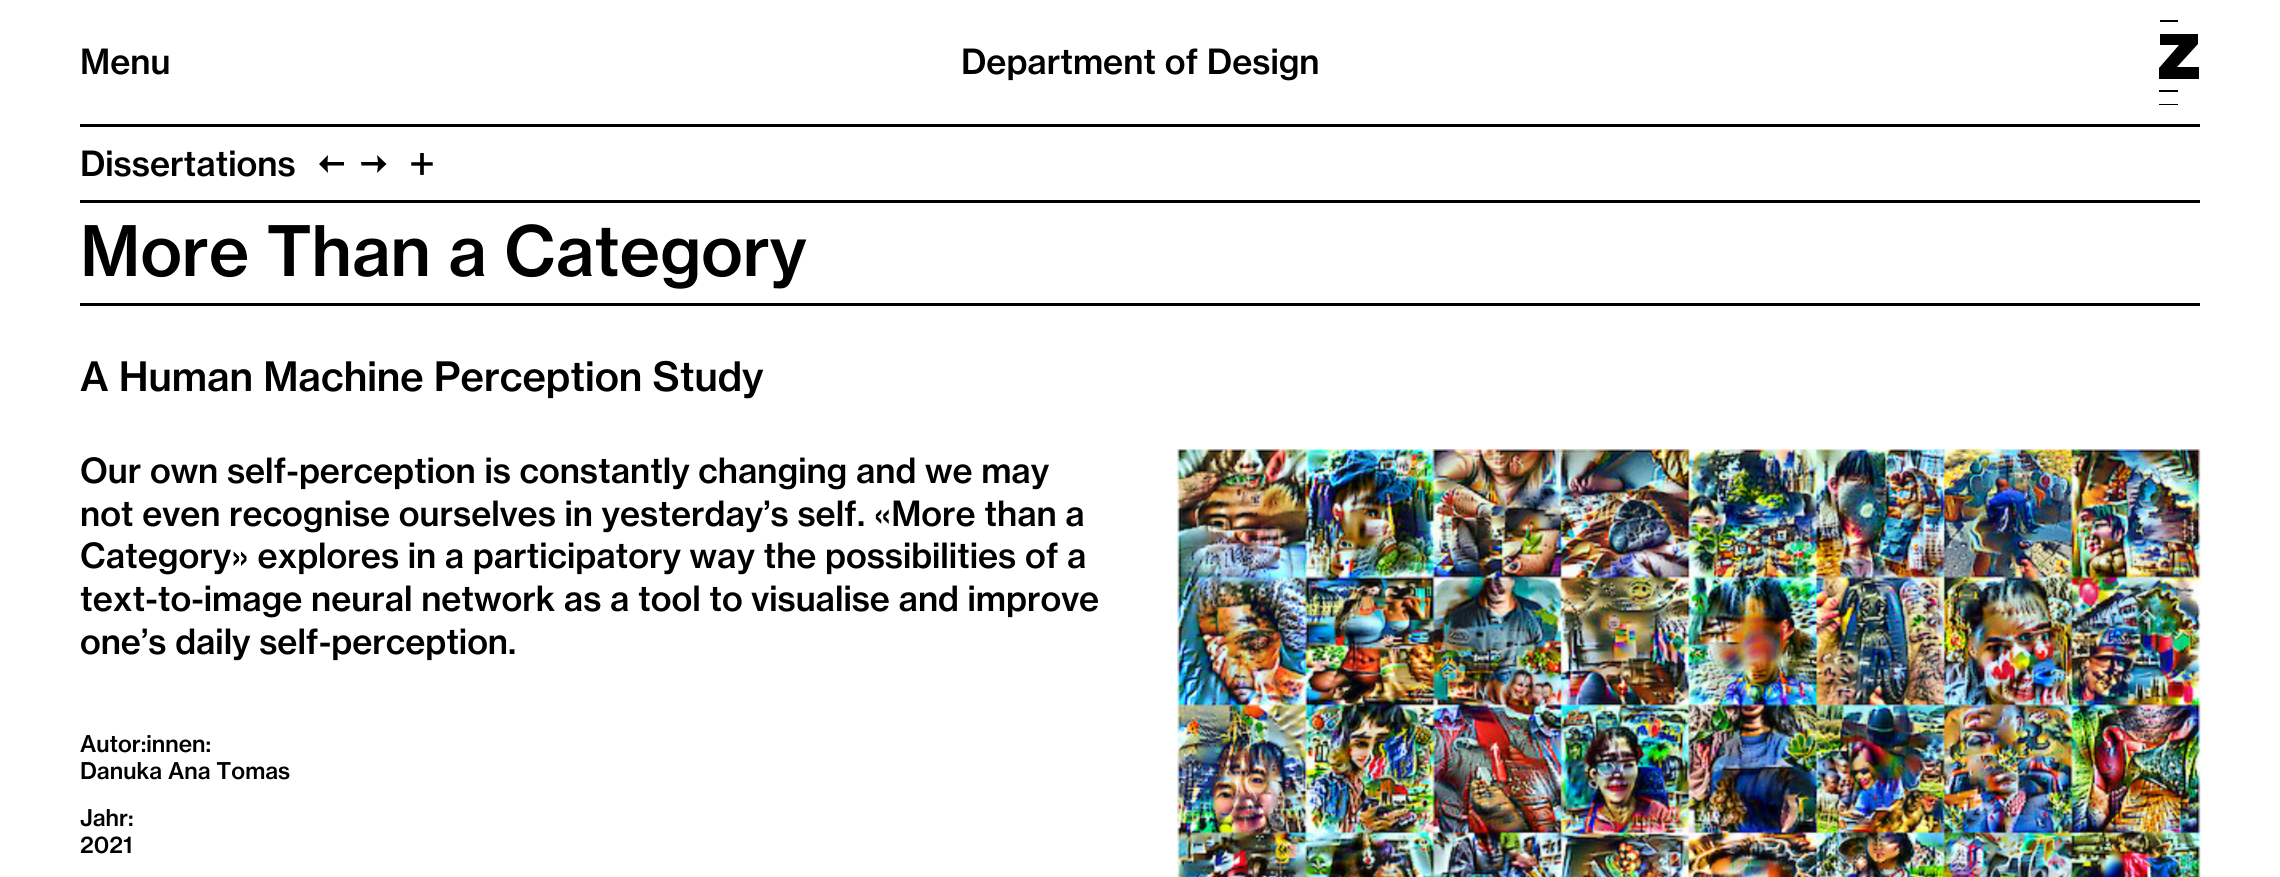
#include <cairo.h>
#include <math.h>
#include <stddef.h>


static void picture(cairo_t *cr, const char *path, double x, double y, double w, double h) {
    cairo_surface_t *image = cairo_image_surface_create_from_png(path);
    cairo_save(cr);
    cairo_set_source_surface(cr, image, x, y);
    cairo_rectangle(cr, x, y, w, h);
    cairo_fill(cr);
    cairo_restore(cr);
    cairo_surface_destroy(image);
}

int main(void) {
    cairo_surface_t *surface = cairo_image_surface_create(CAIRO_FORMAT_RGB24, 2280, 877);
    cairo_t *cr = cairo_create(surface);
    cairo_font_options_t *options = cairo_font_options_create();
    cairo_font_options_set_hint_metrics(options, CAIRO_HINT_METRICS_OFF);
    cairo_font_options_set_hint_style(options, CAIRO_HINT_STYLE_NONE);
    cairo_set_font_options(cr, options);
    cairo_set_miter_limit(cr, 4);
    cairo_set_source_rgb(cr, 1, 1, 1);
    cairo_paint(cr);
    cairo_set_source_rgb(cr, 0, 0, 0);
    cairo_rectangle(cr, 80, 124, 2120, 3);
    cairo_fill(cr);
    cairo_select_font_face(cr, "Neue Haas Grotesk Medium", CAIRO_FONT_SLANT_NORMAL, CAIRO_FONT_WEIGHT_NORMAL);
    cairo_set_font_size(cr, 34.2);
    cairo_move_to(cr, 80, 74);
    cairo_show_text(cr, "Menu");
    cairo_move_to(cr, 961, 74);
    cairo_show_text(cr, "Department of Design");
    cairo_new_path(cr);
    cairo_move_to(cr, 2178, 105);
    cairo_line_to(cr, 2159, 105);
    cairo_line_to(cr, 2159, 104);
    cairo_line_to(cr, 2178, 104);
    cairo_close_path(cr);
    cairo_move_to(cr, 2178, 92);
    cairo_line_to(cr, 2159, 92);
    cairo_line_to(cr, 2159, 90);
    cairo_line_to(cr, 2178, 90);
    cairo_close_path(cr);
    cairo_move_to(cr, 2178, 22);
    cairo_line_to(cr, 2160, 22);
    cairo_line_to(cr, 2160, 20);
    cairo_line_to(cr, 2178, 20);
    cairo_close_path(cr);
    cairo_fill(cr);
    cairo_new_path(cr);
    cairo_move_to(cr, 2159, 79);
    cairo_line_to(cr, 2199, 79);
    cairo_line_to(cr, 2199, 67);
    cairo_line_to(cr, 2177, 67);
    cairo_line_to(cr, 2198, 44);
    cairo_line_to(cr, 2198, 34);
    cairo_line_to(cr, 2160, 34);
    cairo_line_to(cr, 2160, 45);
    cairo_line_to(cr, 2179, 45);
    cairo_line_to(cr, 2159, 68);
    cairo_close_path(cr);
    cairo_fill(cr);
    cairo_rectangle(cr, 80, 200, 2120, 3);
    cairo_fill(cr);
    cairo_move_to(cr, 80, 176);
    cairo_show_text(cr, "Dissertations");
    cairo_new_path(cr);
    cairo_move_to(cr, 328, 173);
    cairo_line_to(cr, 327.5, 165.5);
    cairo_line_to(cr, 344, 165.5);
    cairo_line_to(cr, 344, 162);
    cairo_line_to(cr, 327.5, 162);
    cairo_line_to(cr, 328, 155);
    cairo_line_to(cr, 319, 164);
    cairo_close_path(cr);
    cairo_fill(cr);
    cairo_new_path(cr);
    cairo_move_to(cr, 377, 173);
    cairo_line_to(cr, 386.5, 164);
    cairo_line_to(cr, 377, 155);
    cairo_line_to(cr, 378, 162);
    cairo_line_to(cr, 361, 162);
    cairo_line_to(cr, 361.5, 165.5);
    cairo_line_to(cr, 378, 165.5);
    cairo_close_path(cr);
    cairo_fill(cr);
    picture(cr, "img1.png", 411, 153, 22, 22);
    cairo_rectangle(cr, 80, 303, 2120, 3);
    cairo_fill(cr);
    cairo_set_font_size(cr, 68.4);
    cairo_move_to(cr, 80, 276);
    cairo_show_text(cr, "More Than a Category");
    cairo_set_font_size(cr, 39.9);
    cairo_move_to(cr, 80, 391);
    cairo_show_text(cr, "A Human Machine Perception Study");
    cairo_set_font_size(cr, 34.2);
    cairo_move_to(cr, 80, 483);
    cairo_show_text(cr, "Our own self-perception is constantly changing and we may");
    cairo_move_to(cr, 80, 526);
    cairo_show_text(cr, "not even recognise ourselves in yesterday’s self. «More than a");
    cairo_move_to(cr, 80, 568);
    cairo_show_text(cr, "Category» explores in a participatory way the possibilities of a");
    cairo_move_to(cr, 80, 611);
    cairo_show_text(cr, "text-to-image neural network as a tool to visualise and improve");
    cairo_move_to(cr, 80, 654);
    cairo_show_text(cr, "one’s daily self-perception.");
    cairo_set_font_size(cr, 22.75);
    cairo_move_to(cr, 80, 752);
    cairo_show_text(cr, "Autor:innen:");
    cairo_move_to(cr, 80, 779);
    cairo_show_text(cr, "Danuka Ana Tomas");
    cairo_move_to(cr, 80, 826);
    cairo_show_text(cr, "Jahr:");
    cairo_move_to(cr, 80, 853);
    cairo_show_text(cr, "2021");
    picture(cr, "img2.png", 1177, 449, 1024, 428);
    cairo_surface_write_to_png(surface, "page.png");
    cairo_font_options_destroy(options);
    cairo_destroy(cr);
    cairo_surface_destroy(surface);
    return 0;
}
